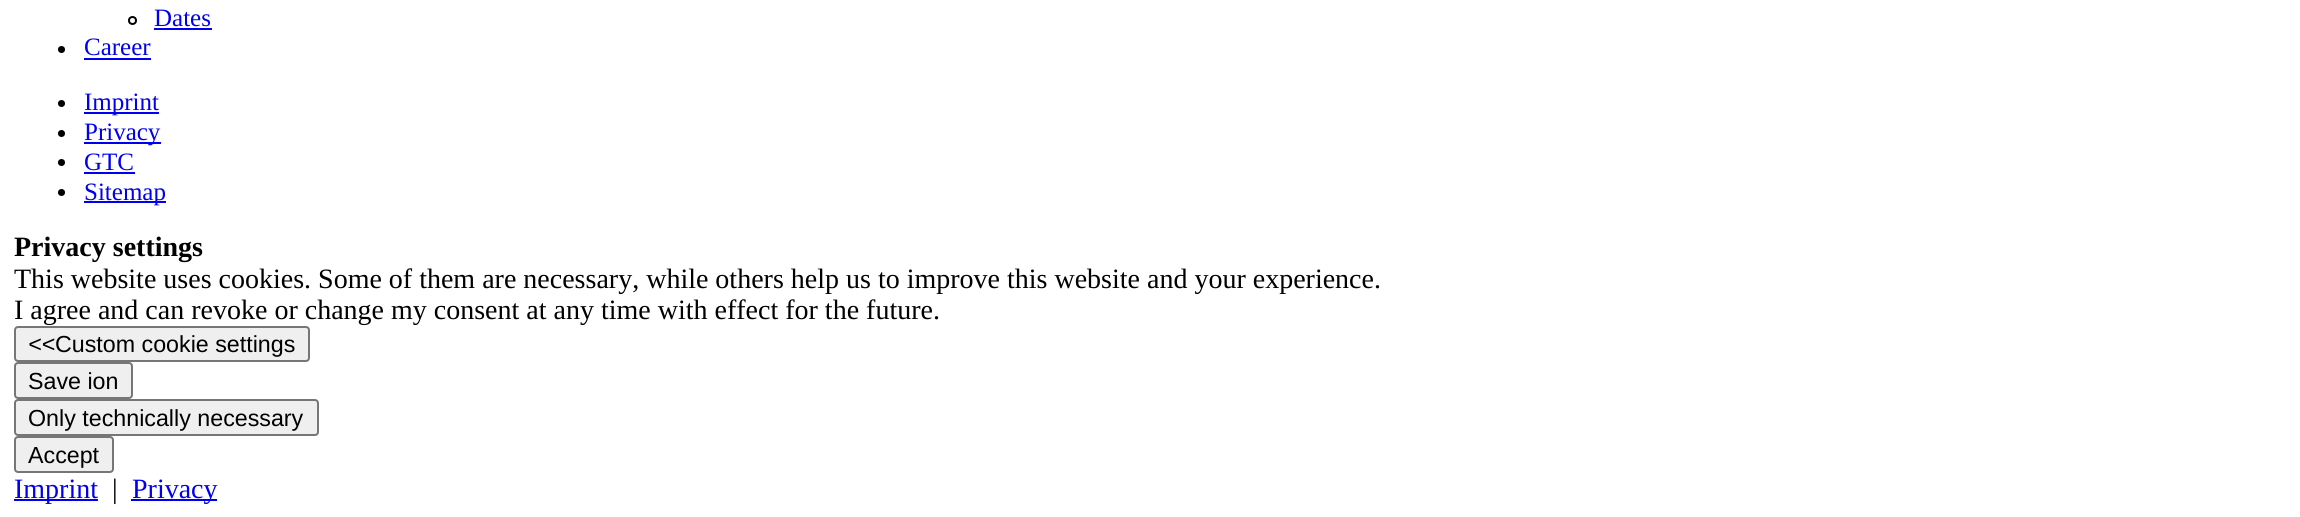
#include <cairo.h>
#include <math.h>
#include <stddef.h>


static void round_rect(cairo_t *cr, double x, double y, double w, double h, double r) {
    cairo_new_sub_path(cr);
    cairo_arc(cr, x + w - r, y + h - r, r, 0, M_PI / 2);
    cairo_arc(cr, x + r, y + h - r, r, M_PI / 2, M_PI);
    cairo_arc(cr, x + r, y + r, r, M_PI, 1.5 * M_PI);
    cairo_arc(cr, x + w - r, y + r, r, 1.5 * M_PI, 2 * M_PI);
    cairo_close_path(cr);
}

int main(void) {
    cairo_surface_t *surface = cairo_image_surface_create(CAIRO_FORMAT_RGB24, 2300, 517);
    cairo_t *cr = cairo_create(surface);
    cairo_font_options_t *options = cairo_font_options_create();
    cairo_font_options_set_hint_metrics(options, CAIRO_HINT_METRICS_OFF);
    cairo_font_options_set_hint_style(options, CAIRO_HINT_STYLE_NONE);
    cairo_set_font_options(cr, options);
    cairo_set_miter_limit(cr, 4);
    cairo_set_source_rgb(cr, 1, 1, 1);
    cairo_paint(cr);
    cairo_arc(cr, 132.5, 20.5, 3.5, 0, 2 * M_PI);
    cairo_set_source_rgb(cr, 0, 0, 0);
    cairo_stroke(cr);
    cairo_select_font_face(cr, "Liberation Serif", CAIRO_FONT_SLANT_NORMAL, CAIRO_FONT_WEIGHT_NORMAL);
    cairo_set_font_size(cr, 25);
    cairo_set_source_rgb(cr, 0, 0, 0.933);
    cairo_move_to(cr, 154, 26);
    cairo_show_text(cr, "Dates");
    cairo_rectangle(cr, 154, 28, 58, 2);
    cairo_fill(cr);
    cairo_set_source_rgb(cr, 0, 0, 0);
    cairo_arc(cr, 61.5, 49.5, 3.5, 0, 2 * M_PI);
    cairo_fill(cr);
    cairo_set_source_rgb(cr, 0, 0, 0.933);
    cairo_move_to(cr, 84, 55);
    cairo_show_text(cr, "Career");
    cairo_rectangle(cr, 84, 58, 67, 2);
    cairo_fill(cr);
    cairo_set_source_rgb(cr, 0, 0, 0);
    cairo_arc(cr, 61.5, 103.5, 3.5, 0, 2 * M_PI);
    cairo_fill(cr);
    cairo_set_source_rgb(cr, 0, 0, 0.933);
    cairo_rectangle(cr, 84, 112, 75, 2);
    cairo_fill(cr);
    cairo_move_to(cr, 84, 110);
    cairo_show_text(cr, "Imprint");
    cairo_set_source_rgb(cr, 0, 0, 0);
    cairo_new_path(cr);
    cairo_arc(cr, 61.5, 133.5, 3.5, 0, 2 * M_PI);
    cairo_fill(cr);
    cairo_set_source_rgb(cr, 0, 0, 0.933);
    cairo_rectangle(cr, 84, 142, 77, 2);
    cairo_fill(cr);
    cairo_move_to(cr, 84, 140);
    cairo_show_text(cr, "Privacy");
    cairo_set_source_rgb(cr, 0, 0, 0);
    cairo_new_path(cr);
    cairo_arc(cr, 61.5, 162.5, 3.5, 0, 2 * M_PI);
    cairo_fill(cr);
    cairo_set_source_rgb(cr, 0, 0, 0.933);
    cairo_move_to(cr, 84, 170);
    cairo_show_text(cr, "GTC");
    cairo_rectangle(cr, 84, 172, 51, 2);
    cairo_fill(cr);
    cairo_set_source_rgb(cr, 0, 0, 0);
    cairo_arc(cr, 61.5, 192.5, 3.5, 0, 2 * M_PI);
    cairo_fill(cr);
    cairo_set_source_rgb(cr, 0, 0, 0.933);
    cairo_rectangle(cr, 84, 201, 82, 2);
    cairo_fill(cr);
    cairo_move_to(cr, 84, 200);
    cairo_show_text(cr, "Sitemap");
    cairo_select_font_face(cr, "Liberation Serif", CAIRO_FONT_SLANT_NORMAL, CAIRO_FONT_WEIGHT_BOLD);
    cairo_set_font_size(cr, 28);
    cairo_set_source_rgb(cr, 0, 0, 0);
    cairo_move_to(cr, 14, 256);
    cairo_show_text(cr, "Privacy settings");
    cairo_select_font_face(cr, "Liberation Serif", CAIRO_FONT_SLANT_NORMAL, CAIRO_FONT_WEIGHT_NORMAL);
    cairo_move_to(cr, 14, 288);
    cairo_show_text(cr, "This website uses cookies. Some of them are necessary, while others help us to improve this website and your experience.");
    cairo_move_to(cr, 14, 319);
    cairo_show_text(cr, "I agree and can revoke or change my consent at any time with effect for the future.");
    cairo_set_source_rgb(cr, 0.937, 0.937, 0.937);
    round_rect(cr, 15, 327, 294, 34, 3);
    cairo_fill_preserve(cr);
    cairo_set_source_rgb(cr, 0.463, 0.463, 0.463);
    cairo_stroke(cr);
    cairo_select_font_face(cr, "Liberation Sans", CAIRO_FONT_SLANT_ITALIC, CAIRO_FONT_WEIGHT_NORMAL);
    cairo_set_font_size(cr, 23.25);
    cairo_set_source_rgb(cr, 0, 0, 0);
    cairo_move_to(cr, 28, 352);
    cairo_show_text(cr, "<<");
    cairo_select_font_face(cr, "Liberation Sans", CAIRO_FONT_SLANT_NORMAL, CAIRO_FONT_WEIGHT_NORMAL);
    cairo_move_to(cr, 55, 352);
    cairo_show_text(cr, "Custom cookie settings");
    cairo_set_source_rgb(cr, 0.937, 0.937, 0.937);
    round_rect(cr, 15, 363, 117, 35, 3);
    cairo_fill_preserve(cr);
    cairo_set_source_rgb(cr, 0.463, 0.463, 0.463);
    cairo_stroke(cr);
    cairo_set_source_rgb(cr, 0, 0, 0);
    cairo_move_to(cr, 28, 389);
    cairo_show_text(cr, "Save ion");
    cairo_set_source_rgb(cr, 0.937, 0.937, 0.937);
    round_rect(cr, 15, 400, 303, 35, 3);
    cairo_fill_preserve(cr);
    cairo_set_source_rgb(cr, 0.463, 0.463, 0.463);
    cairo_stroke(cr);
    cairo_set_source_rgb(cr, 0, 0, 0);
    cairo_move_to(cr, 28, 426);
    cairo_show_text(cr, "Only technically necessary");
    cairo_set_source_rgb(cr, 0.937, 0.937, 0.937);
    round_rect(cr, 15, 437, 98, 35, 3);
    cairo_fill_preserve(cr);
    cairo_set_source_rgb(cr, 0.463, 0.463, 0.463);
    cairo_stroke(cr);
    cairo_set_source_rgb(cr, 0, 0, 0);
    cairo_move_to(cr, 28, 463);
    cairo_show_text(cr, "Accept");
    cairo_set_source_rgb(cr, 0, 0, 0.933);
    cairo_rectangle(cr, 14, 499, 84, 2);
    cairo_fill(cr);
    cairo_select_font_face(cr, "Liberation Serif", CAIRO_FONT_SLANT_NORMAL, CAIRO_FONT_WEIGHT_NORMAL);
    cairo_set_font_size(cr, 28);
    cairo_move_to(cr, 14, 498);
    cairo_show_text(cr, "Imprint");
    cairo_set_source_rgb(cr, 0, 0, 0);
    cairo_move_to(cr, 112, 498);
    cairo_show_text(cr, "|");
    cairo_set_source_rgb(cr, 0, 0, 0.933);
    cairo_rectangle(cr, 131, 499, 86, 2);
    cairo_fill(cr);
    cairo_move_to(cr, 132, 498);
    cairo_show_text(cr, "Privacy");
    cairo_surface_write_to_png(surface, "page.png");
    cairo_font_options_destroy(options);
    cairo_destroy(cr);
    cairo_surface_destroy(surface);
    return 0;
}
